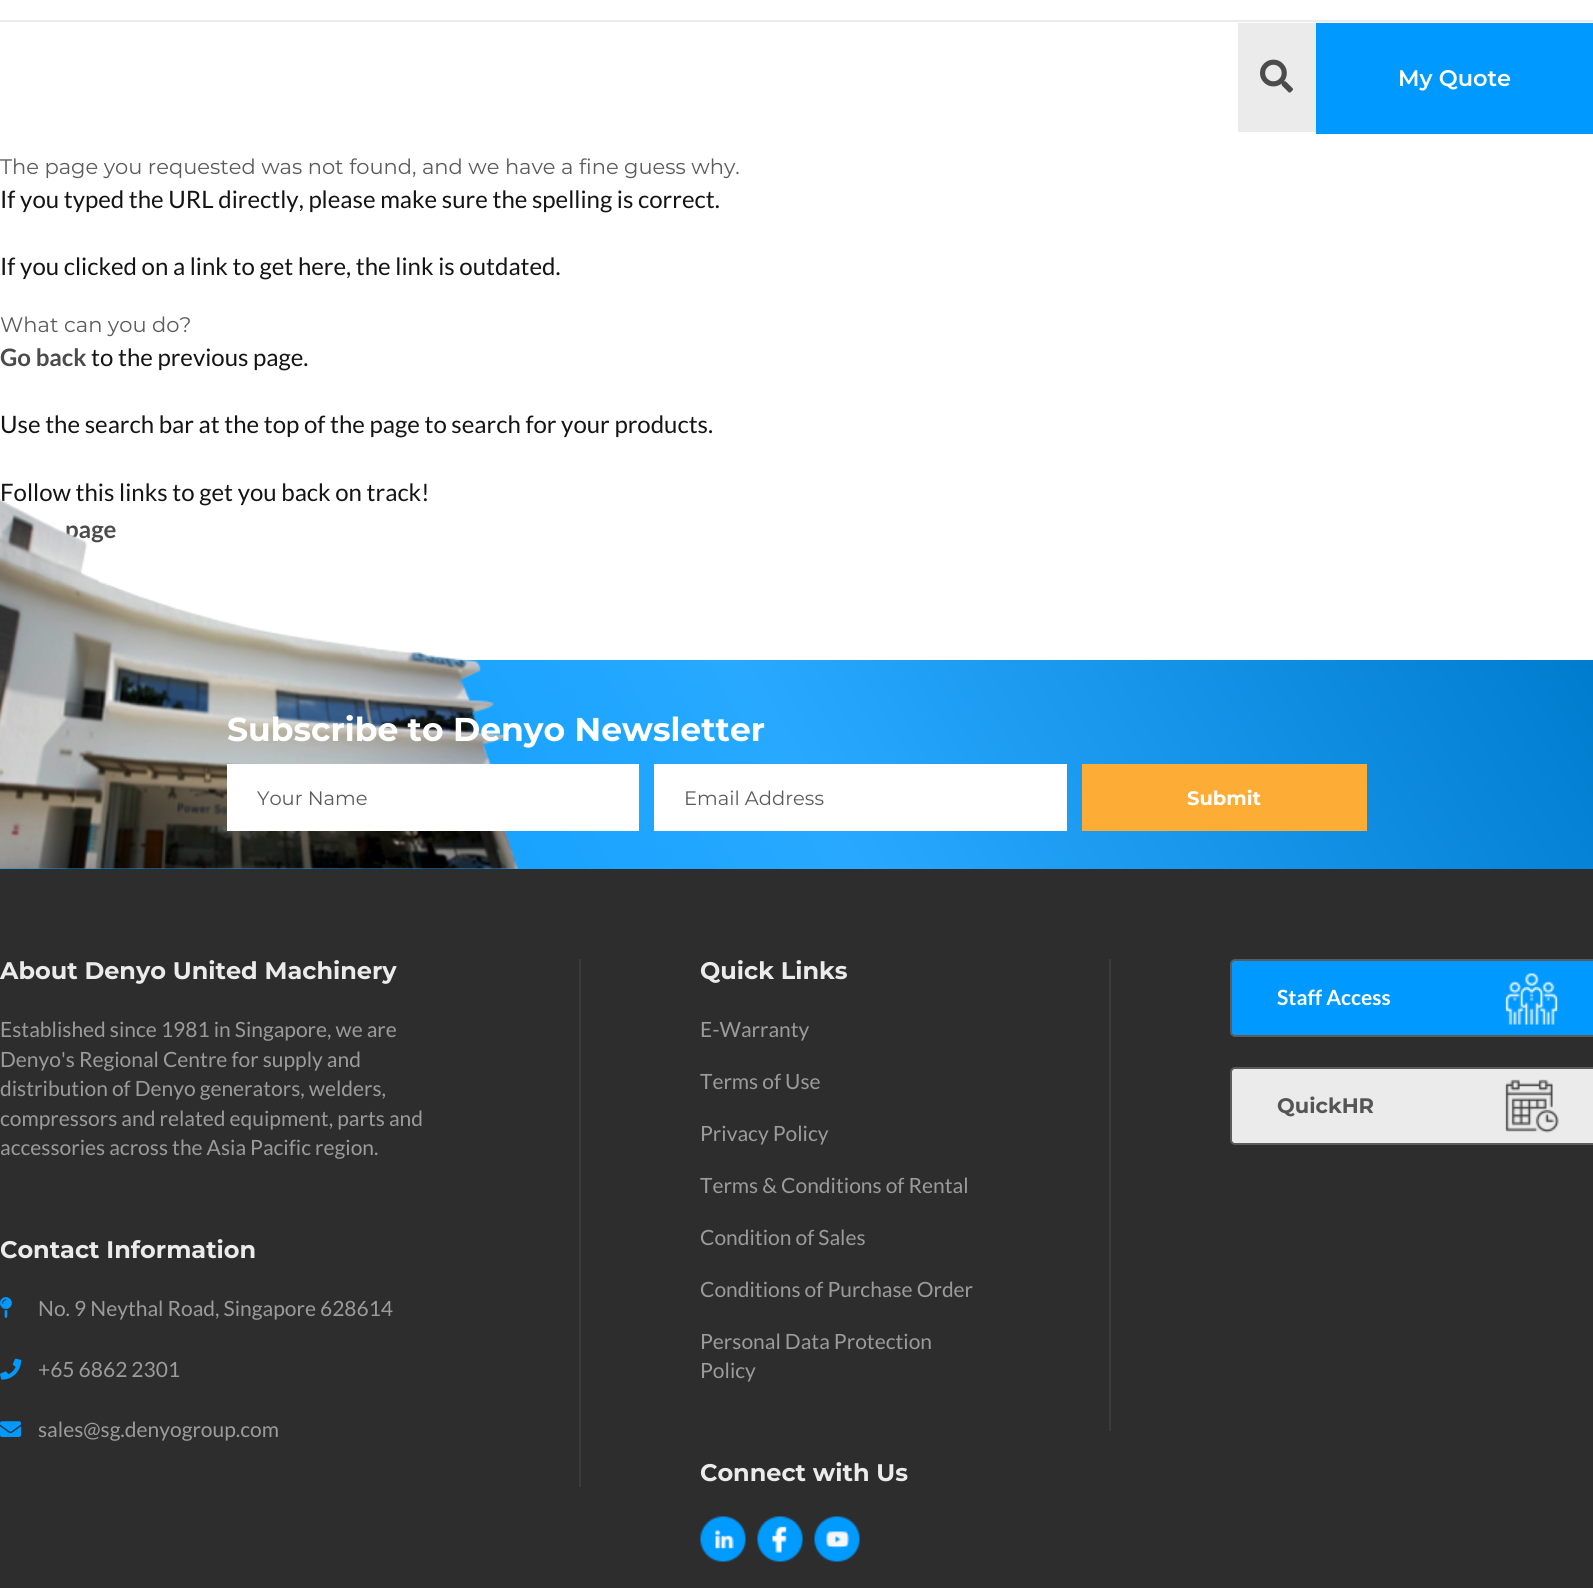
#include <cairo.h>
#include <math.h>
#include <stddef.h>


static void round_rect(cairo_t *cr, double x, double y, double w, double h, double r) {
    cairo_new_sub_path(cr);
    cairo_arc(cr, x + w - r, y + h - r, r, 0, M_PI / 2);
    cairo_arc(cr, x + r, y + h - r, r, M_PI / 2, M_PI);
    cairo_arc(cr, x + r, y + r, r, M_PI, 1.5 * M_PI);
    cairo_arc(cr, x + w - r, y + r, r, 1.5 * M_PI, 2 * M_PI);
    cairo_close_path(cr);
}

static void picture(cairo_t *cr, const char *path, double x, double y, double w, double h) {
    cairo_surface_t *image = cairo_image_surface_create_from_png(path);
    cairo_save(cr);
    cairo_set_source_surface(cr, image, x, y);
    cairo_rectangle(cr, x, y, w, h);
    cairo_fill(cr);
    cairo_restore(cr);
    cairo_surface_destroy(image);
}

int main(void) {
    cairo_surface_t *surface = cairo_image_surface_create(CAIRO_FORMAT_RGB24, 1593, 1588);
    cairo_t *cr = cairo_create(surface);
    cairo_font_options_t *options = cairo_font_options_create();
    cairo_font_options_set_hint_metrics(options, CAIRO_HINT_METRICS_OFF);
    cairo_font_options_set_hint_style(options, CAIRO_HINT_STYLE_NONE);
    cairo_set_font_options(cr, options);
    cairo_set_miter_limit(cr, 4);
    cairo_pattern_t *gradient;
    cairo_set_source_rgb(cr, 1, 1, 1);
    cairo_paint(cr);
    cairo_set_source_rgb(cr, 0.918, 0.918, 0.918);
    cairo_rectangle(cr, 0, 20, 1593, 2);
    cairo_fill(cr);
    cairo_rectangle(cr, 1238, 23, 78, 109);
    cairo_fill(cr);
    picture(cr, "img1.png", 1260, 59, 33, 34);
    cairo_set_source_rgb(cr, 0, 0.6, 1);
    cairo_rectangle(cr, 1316, 23, 277, 111);
    cairo_fill(cr);
    cairo_select_font_face(cr, "Montserrat SemiBold", CAIRO_FONT_SLANT_NORMAL, CAIRO_FONT_WEIGHT_NORMAL);
    cairo_set_font_size(cr, 22.5);
    cairo_set_source_rgb(cr, 1, 1, 1);
    cairo_move_to(cr, 1398, 86);
    cairo_show_text(cr, "My Quote");
    cairo_select_font_face(cr, "Montserrat", CAIRO_FONT_SLANT_NORMAL, CAIRO_FONT_WEIGHT_NORMAL);
    cairo_set_font_size(cr, 21);
    cairo_set_source_rgb(cr, 0.357, 0.357, 0.357);
    cairo_move_to(cr, 0, 174);
    cairo_show_text(cr, "The page you requested was not found, and we have a fine guess why.");
    cairo_select_font_face(cr, "Lato", CAIRO_FONT_SLANT_NORMAL, CAIRO_FONT_WEIGHT_NORMAL);
    cairo_set_font_size(cr, 24);
    cairo_set_source_rgb(cr, 0.082, 0.082, 0.082);
    cairo_move_to(cr, 0, 208);
    cairo_show_text(cr, "If you typed the URL directly, please make sure the spelling is correct.");
    cairo_move_to(cr, 0, 275);
    cairo_show_text(cr, "If you clicked on a link to get here, the link is outdated.");
    cairo_select_font_face(cr, "Montserrat", CAIRO_FONT_SLANT_NORMAL, CAIRO_FONT_WEIGHT_NORMAL);
    cairo_set_font_size(cr, 21);
    cairo_set_source_rgb(cr, 0.357, 0.357, 0.357);
    cairo_move_to(cr, 0, 332);
    cairo_show_text(cr, "What can you do?");
    cairo_select_font_face(cr, "Lato", CAIRO_FONT_SLANT_NORMAL, CAIRO_FONT_WEIGHT_BOLD);
    cairo_set_font_size(cr, 24);
    cairo_set_source_rgb(cr, 0.294, 0.294, 0.294);
    cairo_move_to(cr, 0, 366);
    cairo_show_text(cr, "Go back");
    cairo_select_font_face(cr, "Lato", CAIRO_FONT_SLANT_NORMAL, CAIRO_FONT_WEIGHT_NORMAL);
    cairo_set_source_rgb(cr, 0.082, 0.082, 0.082);
    cairo_move_to(cr, 91, 366);
    cairo_show_text(cr, "to the previous page.");
    cairo_move_to(cr, 0, 433);
    cairo_show_text(cr, "Use the search bar at the top of the page to search for your products.");
    cairo_move_to(cr, 0, 501);
    cairo_show_text(cr, "Follow this links to get you back on track!");
    cairo_select_font_face(cr, "Lato", CAIRO_FONT_SLANT_NORMAL, CAIRO_FONT_WEIGHT_BOLD);
    cairo_set_source_rgb(cr, 0.294, 0.294, 0.294);
    cairo_move_to(cr, 65, 538);
    cairo_show_text(cr, "page");
    gradient = cairo_pattern_create_linear(154, 1135, 1439, 393);
    cairo_pattern_add_color_stop_rgba(gradient, 0, 0, 0.6, 1, 1);
    cairo_pattern_add_color_stop_rgba(gradient, 0.5, 0.157, 0.663, 1, 1);
    cairo_pattern_add_color_stop_rgba(gradient, 1, 0, 0.486, 0.812, 1);
    cairo_set_source(cr, gradient);
    cairo_pattern_destroy(gradient);
    cairo_rectangle(cr, 0, 660, 1593, 209);
    cairo_fill(cr);
    picture(cr, "img2.png", 0, 499, 518, 370);
    cairo_select_font_face(cr, "Montserrat", CAIRO_FONT_SLANT_NORMAL, CAIRO_FONT_WEIGHT_BOLD);
    cairo_set_font_size(cr, 33);
    cairo_set_source_rgb(cr, 1, 1, 1);
    cairo_move_to(cr, 227, 741);
    cairo_show_text(cr, "Subscribe to Denyo Newsletter");
    cairo_rectangle(cr, 227, 764, 412, 67);
    cairo_fill(cr);
    cairo_select_font_face(cr, "Montserrat", CAIRO_FONT_SLANT_NORMAL, CAIRO_FONT_WEIGHT_NORMAL);
    cairo_set_font_size(cr, 19.5);
    cairo_set_source_rgb(cr, 0.357, 0.357, 0.357);
    cairo_move_to(cr, 257, 805);
    cairo_show_text(cr, "Your Name");
    cairo_set_source_rgb(cr, 1, 1, 1);
    cairo_rectangle(cr, 654, 764, 413, 67);
    cairo_fill(cr);
    cairo_set_source_rgb(cr, 0.357, 0.357, 0.357);
    cairo_move_to(cr, 684, 805);
    cairo_show_text(cr, "Email Address");
    cairo_set_source_rgb(cr, 0.992, 0.675, 0.208);
    cairo_rectangle(cr, 1082, 764, 285, 67);
    cairo_fill(cr);
    cairo_select_font_face(cr, "Montserrat", CAIRO_FONT_SLANT_NORMAL, CAIRO_FONT_WEIGHT_BOLD);
    cairo_set_source_rgb(cr, 1, 1, 1);
    cairo_move_to(cr, 1187, 805);
    cairo_show_text(cr, "Submit");
    cairo_set_source_rgb(cr, 0.176, 0.176, 0.176);
    cairo_rectangle(cr, 0, 869, 1593, 719);
    cairo_fill(cr);
    cairo_set_font_size(cr, 24);
    cairo_set_source_rgb(cr, 0.918, 0.918, 0.918);
    cairo_move_to(cr, 0, 979);
    cairo_show_text(cr, "About Denyo United Machinery");
    cairo_select_font_face(cr, "Lato", CAIRO_FONT_SLANT_NORMAL, CAIRO_FONT_WEIGHT_NORMAL);
    cairo_set_font_size(cr, 21);
    cairo_set_source_rgb(cr, 0.608, 0.608, 0.608);
    cairo_move_to(cr, 0, 1037);
    cairo_show_text(cr, "Established since 1981 in Singapore, we are");
    cairo_move_to(cr, 0, 1067);
    cairo_show_text(cr, "Denyo's Regional Centre for supply and");
    cairo_move_to(cr, 0, 1096);
    cairo_show_text(cr, "distribution of Denyo generators, welders,");
    cairo_move_to(cr, 0, 1126);
    cairo_show_text(cr, "compressors and related equipment, parts and");
    cairo_move_to(cr, 0, 1155);
    cairo_show_text(cr, "accessories across the Asia Pacific region.");
    cairo_select_font_face(cr, "Montserrat", CAIRO_FONT_SLANT_NORMAL, CAIRO_FONT_WEIGHT_BOLD);
    cairo_set_font_size(cr, 24);
    cairo_set_source_rgb(cr, 0.918, 0.918, 0.918);
    cairo_move_to(cr, 0, 1258);
    cairo_show_text(cr, "Contact Information");
    picture(cr, "img3.png", 0, 1297, 12, 22);
    cairo_select_font_face(cr, "Lato", CAIRO_FONT_SLANT_NORMAL, CAIRO_FONT_WEIGHT_NORMAL);
    cairo_set_font_size(cr, 21);
    cairo_set_source_rgb(cr, 0.608, 0.608, 0.608);
    cairo_move_to(cr, 38, 1316);
    cairo_show_text(cr, "No. 9 Neythal Road, Singapore 628614");
    picture(cr, "img4.png", 0, 1358, 21, 22);
    cairo_move_to(cr, 38, 1377);
    cairo_show_text(cr, "+65 6862 2301");
    picture(cr, "img5.png", 0, 1421, 21, 16);
    cairo_move_to(cr, 38, 1437);
    cairo_show_text(cr, "sales@sg.denyogroup.com");
    cairo_set_source_rgb(cr, 0.231, 0.231, 0.231);
    cairo_rectangle(cr, 579, 959, 2, 528);
    cairo_fill(cr);
    cairo_select_font_face(cr, "Montserrat", CAIRO_FONT_SLANT_NORMAL, CAIRO_FONT_WEIGHT_BOLD);
    cairo_set_font_size(cr, 24);
    cairo_set_source_rgb(cr, 0.918, 0.918, 0.918);
    cairo_move_to(cr, 700, 979);
    cairo_show_text(cr, "Quick Links");
    cairo_select_font_face(cr, "Lato", CAIRO_FONT_SLANT_NORMAL, CAIRO_FONT_WEIGHT_NORMAL);
    cairo_set_font_size(cr, 21);
    cairo_set_source_rgb(cr, 0.608, 0.608, 0.608);
    cairo_move_to(cr, 700, 1037);
    cairo_show_text(cr, "E-Warranty");
    cairo_move_to(cr, 700, 1089);
    cairo_show_text(cr, "Terms of Use");
    cairo_move_to(cr, 700, 1141);
    cairo_show_text(cr, "Privacy Policy");
    cairo_move_to(cr, 700, 1193);
    cairo_show_text(cr, "Terms & Conditions of Rental");
    cairo_move_to(cr, 700, 1245);
    cairo_show_text(cr, "Condition of Sales");
    cairo_move_to(cr, 700, 1297);
    cairo_show_text(cr, "Conditions of Purchase Order");
    cairo_move_to(cr, 700, 1349);
    cairo_show_text(cr, "Personal Data Protection");
    cairo_move_to(cr, 700, 1378);
    cairo_show_text(cr, "Policy");
    cairo_select_font_face(cr, "Montserrat", CAIRO_FONT_SLANT_NORMAL, CAIRO_FONT_WEIGHT_BOLD);
    cairo_set_font_size(cr, 24);
    cairo_set_source_rgb(cr, 0.918, 0.918, 0.918);
    cairo_move_to(cr, 700, 1481);
    cairo_show_text(cr, "Connect with Us");
    picture(cr, "img6.png", 700, 1516, 46, 46);
    picture(cr, "img7.png", 757, 1516, 46, 46);
    picture(cr, "img8.png", 814, 1516, 46, 46);
    cairo_set_source_rgb(cr, 0.231, 0.231, 0.231);
    cairo_rectangle(cr, 1109, 959, 2, 472);
    cairo_fill(cr);
    cairo_set_source_rgb(cr, 0, 0.6, 1);
    round_rect(cr, 1231, 960, 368, 76, 4);
    cairo_fill_preserve(cr);
    cairo_set_source_rgb(cr, 0.357, 0.357, 0.357);
    cairo_stroke(cr);
    cairo_select_font_face(cr, "Lato", CAIRO_FONT_SLANT_NORMAL, CAIRO_FONT_WEIGHT_BOLD);
    cairo_set_font_size(cr, 21);
    cairo_set_source_rgb(cr, 1, 1, 1);
    cairo_move_to(cr, 1277, 1005);
    cairo_show_text(cr, "Staff Access");
    picture(cr, "img9.png", 1505, 973, 53, 52);
    cairo_set_source_rgb(cr, 0.918, 0.918, 0.918);
    round_rect(cr, 1231, 1068, 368, 76, 4);
    cairo_fill_preserve(cr);
    cairo_set_source_rgb(cr, 0.357, 0.357, 0.357);
    cairo_stroke(cr);
    cairo_select_font_face(cr, "Montserrat", CAIRO_FONT_SLANT_NORMAL, CAIRO_FONT_WEIGHT_BOLD);
    cairo_set_source_rgb(cr, 0.333, 0.333, 0.333);
    cairo_move_to(cr, 1277, 1113);
    cairo_show_text(cr, "QuickHR");
    picture(cr, "img10.png", 1505, 1079, 54, 54);
    cairo_surface_write_to_png(surface, "page.png");
    cairo_font_options_destroy(options);
    cairo_destroy(cr);
    cairo_surface_destroy(surface);
    return 0;
}
